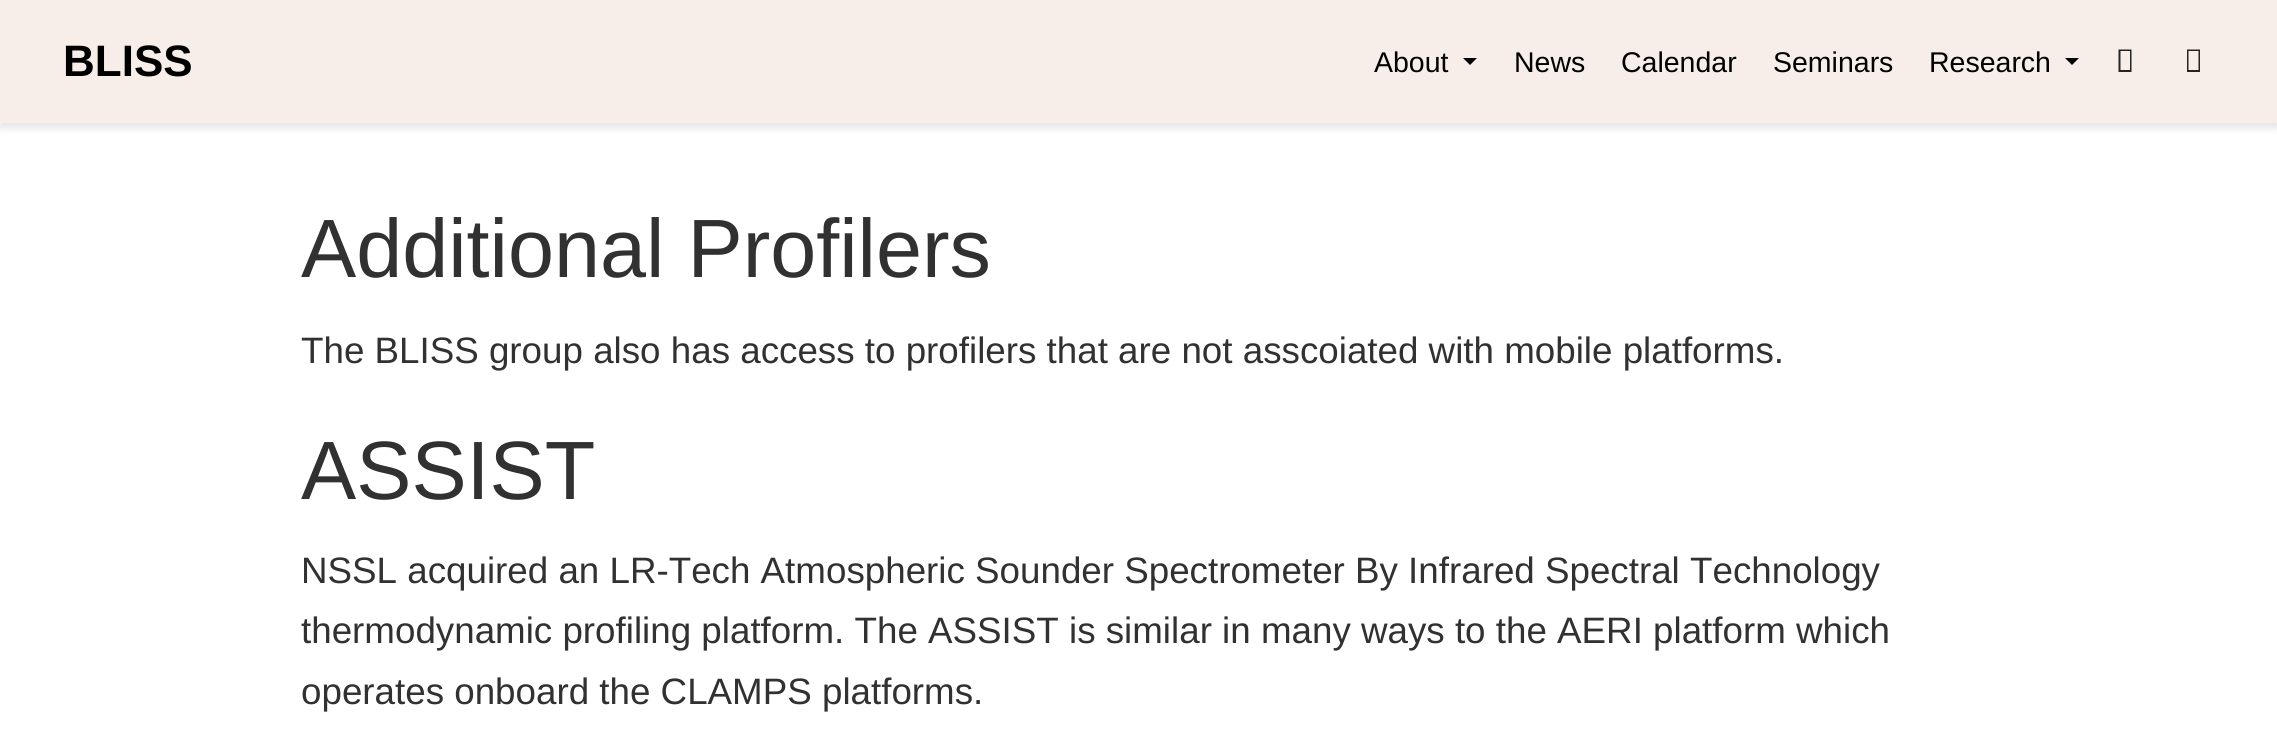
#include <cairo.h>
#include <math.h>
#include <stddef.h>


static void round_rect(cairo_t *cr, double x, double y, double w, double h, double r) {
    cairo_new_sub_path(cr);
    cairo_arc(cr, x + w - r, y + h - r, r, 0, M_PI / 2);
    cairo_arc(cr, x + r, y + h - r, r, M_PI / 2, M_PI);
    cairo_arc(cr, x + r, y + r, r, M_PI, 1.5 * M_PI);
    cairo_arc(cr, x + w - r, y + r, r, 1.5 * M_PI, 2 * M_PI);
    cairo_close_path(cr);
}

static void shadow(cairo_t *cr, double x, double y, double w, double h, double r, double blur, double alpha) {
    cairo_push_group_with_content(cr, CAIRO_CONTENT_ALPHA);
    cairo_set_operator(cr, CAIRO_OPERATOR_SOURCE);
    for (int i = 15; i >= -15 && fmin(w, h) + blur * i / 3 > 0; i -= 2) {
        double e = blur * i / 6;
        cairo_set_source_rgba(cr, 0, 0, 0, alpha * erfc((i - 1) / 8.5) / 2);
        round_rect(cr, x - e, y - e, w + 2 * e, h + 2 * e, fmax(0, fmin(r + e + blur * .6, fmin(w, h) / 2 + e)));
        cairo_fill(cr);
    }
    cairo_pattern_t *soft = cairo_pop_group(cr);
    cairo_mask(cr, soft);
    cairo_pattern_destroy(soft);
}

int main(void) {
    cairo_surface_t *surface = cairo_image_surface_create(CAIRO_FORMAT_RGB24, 2277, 751);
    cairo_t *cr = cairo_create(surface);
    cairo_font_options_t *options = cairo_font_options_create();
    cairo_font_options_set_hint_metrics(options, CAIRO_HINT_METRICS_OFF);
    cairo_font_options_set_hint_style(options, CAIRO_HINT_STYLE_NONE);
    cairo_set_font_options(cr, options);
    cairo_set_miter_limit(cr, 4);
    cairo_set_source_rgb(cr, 1, 1, 1);
    cairo_paint(cr);
    cairo_set_source_rgb(cr, 0, 0, 0);
    shadow(cr, 0, 5, 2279, 123, 0, 4.5, 0.11);
    cairo_set_source_rgb(cr, 0.965, 0.933, 0.914);
    cairo_rectangle(cr, 0, 0, 2277, 123);
    cairo_fill(cr);
    cairo_select_font_face(cr, "Liberation Sans", CAIRO_FONT_SLANT_NORMAL, CAIRO_FONT_WEIGHT_BOLD);
    cairo_set_font_size(cr, 44);
    cairo_set_source_rgb(cr, 0, 0, 0);
    cairo_move_to(cr, 63, 76);
    cairo_show_text(cr, "BLISS");
    cairo_select_font_face(cr, "Liberation Sans", CAIRO_FONT_SLANT_NORMAL, CAIRO_FONT_WEIGHT_NORMAL);
    cairo_set_font_size(cr, 28.5);
    cairo_move_to(cr, 1374, 72);
    cairo_show_text(cr, "About");
    cairo_new_path(cr);
    cairo_move_to(cr, 1463, 58);
    cairo_line_to(cr, 1477, 58);
    cairo_line_to(cr, 1470, 65);
    cairo_close_path(cr);
    cairo_fill(cr);
    cairo_move_to(cr, 1514, 72);
    cairo_show_text(cr, "News");
    cairo_move_to(cr, 1621, 72);
    cairo_show_text(cr, "Calendar");
    cairo_move_to(cr, 1773, 72);
    cairo_show_text(cr, "Seminars");
    cairo_move_to(cr, 1929, 72);
    cairo_show_text(cr, "Research");
    cairo_new_path(cr);
    cairo_move_to(cr, 2065, 58);
    cairo_line_to(cr, 2079, 58);
    cairo_line_to(cr, 2072, 65);
    cairo_close_path(cr);
    cairo_fill(cr);
    cairo_set_source_rgb(cr, 0.145, 0.141, 0.137);
    cairo_new_path(cr);
    cairo_move_to(cr, 2118.5, 72);
    cairo_line_to(cr, 2118.5, 49.5);
    cairo_line_to(cr, 2131.5, 49.5);
    cairo_line_to(cr, 2131.5, 72);
    cairo_close_path(cr);
    cairo_move_to(cr, 2120.5, 70);
    cairo_line_to(cr, 2130, 70);
    cairo_line_to(cr, 2130, 51);
    cairo_line_to(cr, 2120.5, 51);
    cairo_close_path(cr);
    cairo_fill(cr);
    cairo_new_path(cr);
    cairo_move_to(cr, 2187, 72);
    cairo_line_to(cr, 2187, 49.5);
    cairo_line_to(cr, 2200, 49.5);
    cairo_line_to(cr, 2200, 72);
    cairo_close_path(cr);
    cairo_move_to(cr, 2188.5, 70);
    cairo_line_to(cr, 2198.5, 70);
    cairo_line_to(cr, 2198.5, 51);
    cairo_line_to(cr, 2188.5, 51);
    cairo_close_path(cr);
    cairo_fill(cr);
    cairo_set_font_size(cr, 82.75);
    cairo_set_source_rgb(cr, 0.192, 0.192, 0.192);
    cairo_move_to(cr, 301, 277);
    cairo_show_text(cr, "Additional Profilers");
    cairo_set_font_size(cr, 36.75);
    cairo_move_to(cr, 301, 363);
    cairo_show_text(cr, "The BLISS group also has access to profilers that are not asscoiated with mobile platforms.");
    cairo_set_font_size(cr, 82.75);
    cairo_move_to(cr, 301, 499);
    cairo_show_text(cr, "ASSIST");
    cairo_set_font_size(cr, 36.75);
    cairo_move_to(cr, 301, 583);
    cairo_show_text(cr, "NSSL acquired an LR-Tech Atmospheric Sounder Spectrometer By Infrared Spectral Technology");
    cairo_move_to(cr, 301, 643);
    cairo_show_text(cr, "thermodynamic profiling platform. The ASSIST is similar in many ways to the AERI platform which");
    cairo_move_to(cr, 301, 704);
    cairo_show_text(cr, "operates onboard the CLAMPS platforms.");
    cairo_surface_write_to_png(surface, "page.png");
    cairo_font_options_destroy(options);
    cairo_destroy(cr);
    cairo_surface_destroy(surface);
    return 0;
}
